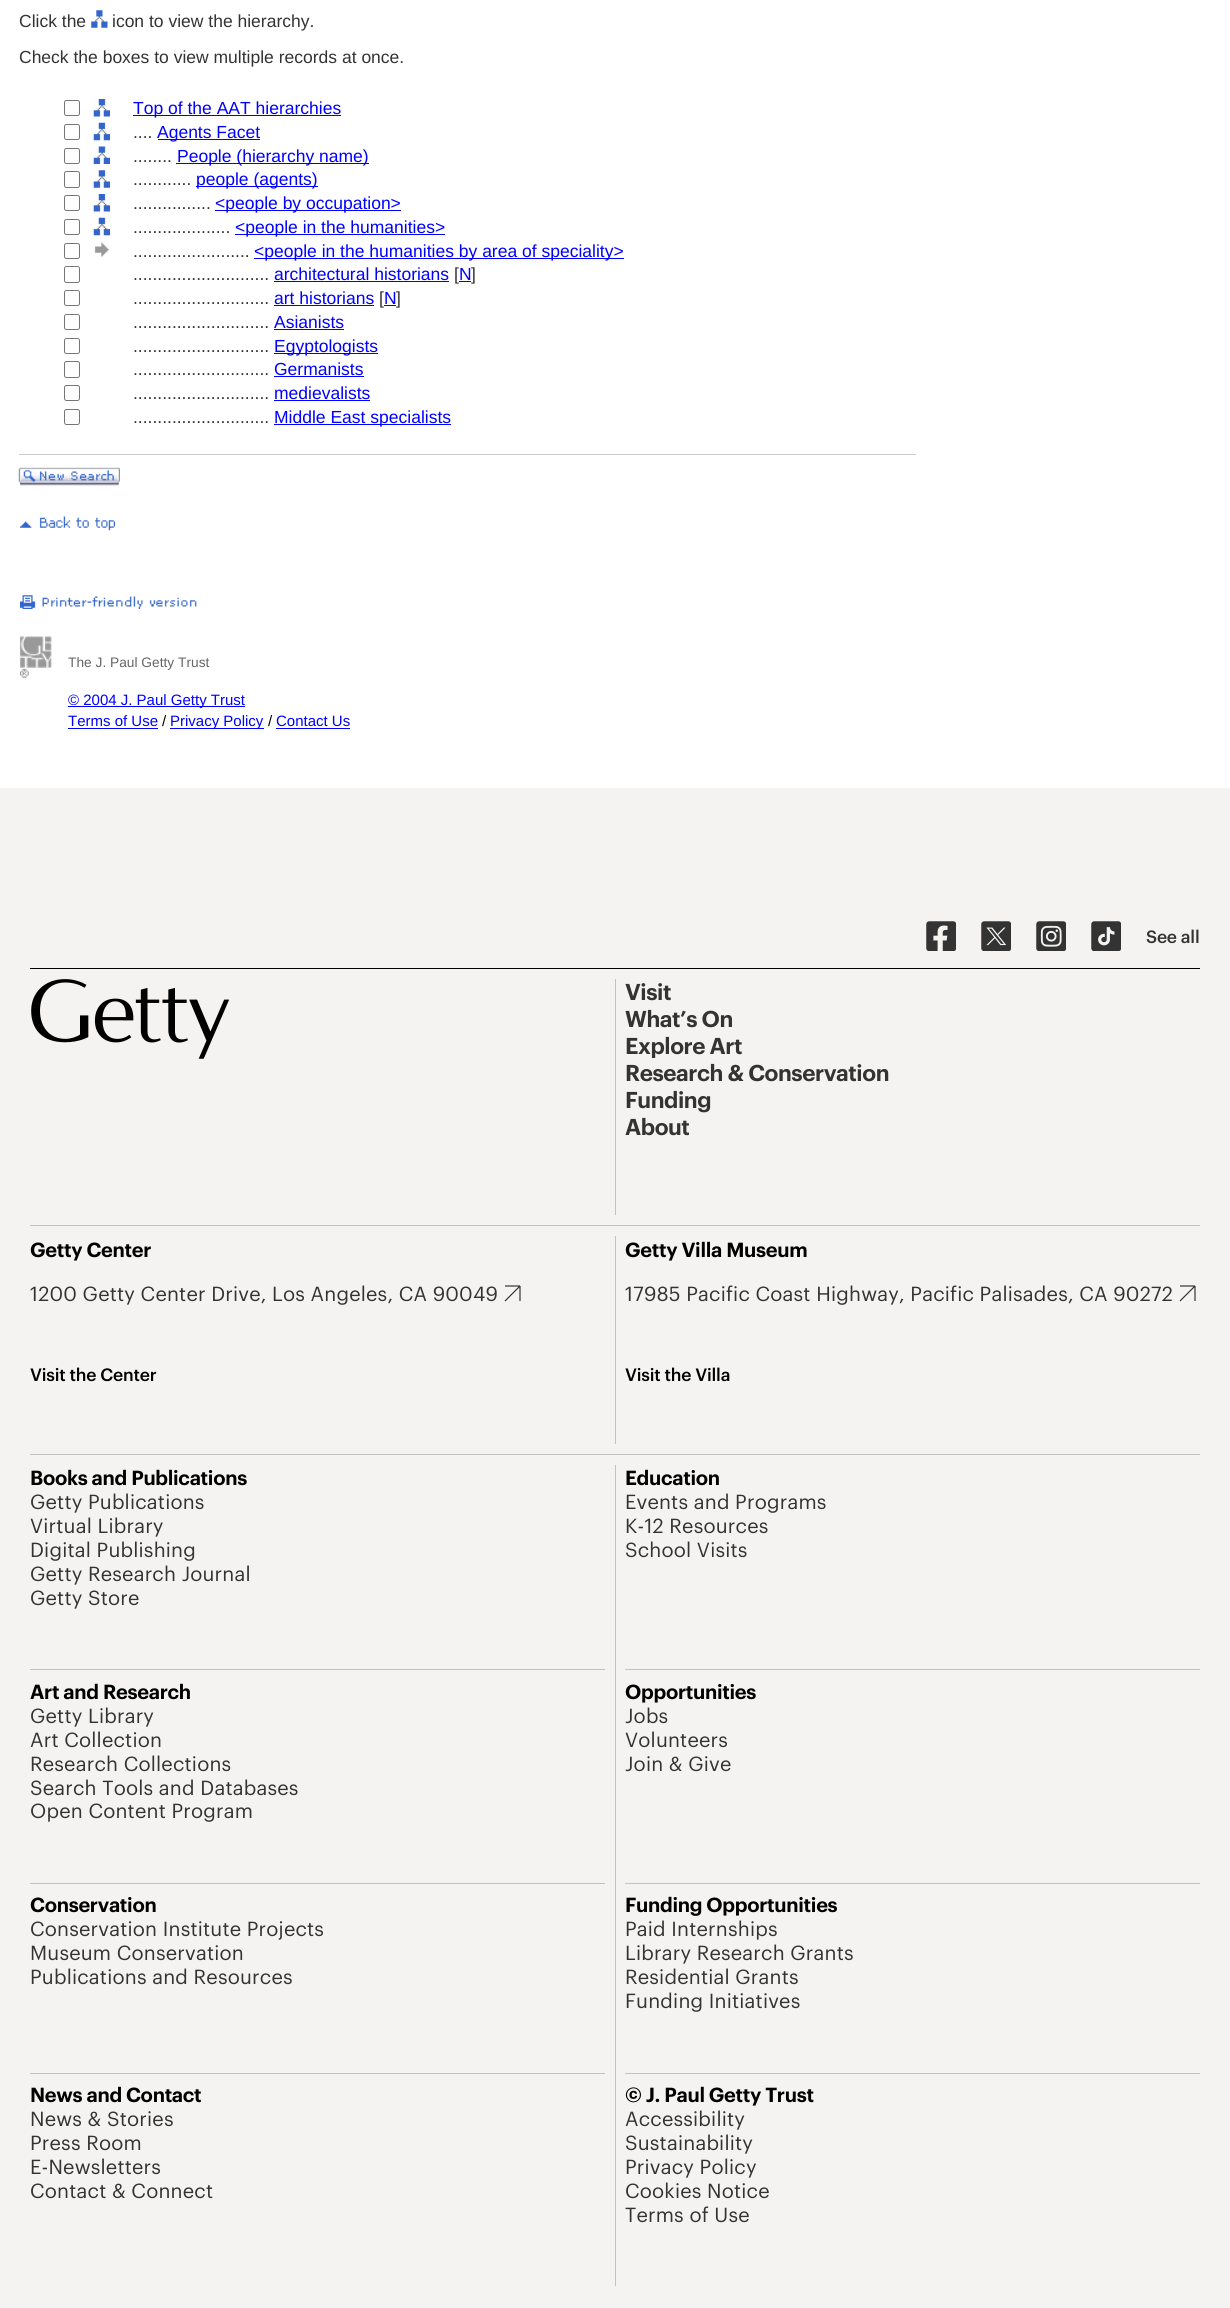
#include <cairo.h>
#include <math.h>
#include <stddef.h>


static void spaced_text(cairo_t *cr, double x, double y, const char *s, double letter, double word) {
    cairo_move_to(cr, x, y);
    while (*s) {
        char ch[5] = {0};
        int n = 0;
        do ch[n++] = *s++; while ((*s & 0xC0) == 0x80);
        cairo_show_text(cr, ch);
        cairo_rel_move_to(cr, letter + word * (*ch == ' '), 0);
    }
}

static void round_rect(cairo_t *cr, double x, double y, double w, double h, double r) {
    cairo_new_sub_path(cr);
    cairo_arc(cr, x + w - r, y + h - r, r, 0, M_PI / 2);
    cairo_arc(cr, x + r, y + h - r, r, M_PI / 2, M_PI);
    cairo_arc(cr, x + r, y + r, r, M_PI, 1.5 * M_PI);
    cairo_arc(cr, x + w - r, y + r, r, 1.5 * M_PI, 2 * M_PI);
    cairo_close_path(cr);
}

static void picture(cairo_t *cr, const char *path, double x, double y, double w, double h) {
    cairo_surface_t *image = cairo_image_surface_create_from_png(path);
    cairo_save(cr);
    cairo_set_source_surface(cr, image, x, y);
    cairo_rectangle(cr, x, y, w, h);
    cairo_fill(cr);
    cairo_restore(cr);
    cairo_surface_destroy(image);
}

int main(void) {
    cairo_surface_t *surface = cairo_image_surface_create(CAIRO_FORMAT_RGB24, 1230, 2308);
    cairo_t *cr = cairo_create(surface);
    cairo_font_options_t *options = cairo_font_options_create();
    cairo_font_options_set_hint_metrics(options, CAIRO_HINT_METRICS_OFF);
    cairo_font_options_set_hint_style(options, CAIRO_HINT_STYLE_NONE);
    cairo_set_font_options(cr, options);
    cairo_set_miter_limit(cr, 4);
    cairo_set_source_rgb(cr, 1, 1, 1);
    cairo_paint(cr);
    cairo_select_font_face(cr, "Liberation Sans", CAIRO_FONT_SLANT_NORMAL, CAIRO_FONT_WEIGHT_NORMAL);
    cairo_set_font_size(cr, 17.5);
    cairo_set_source_rgb(cr, 0.2, 0.2, 0.2);
    cairo_move_to(cr, 19, 27);
    cairo_show_text(cr, "Click the");
    picture(cr, "img1.png", 91, 10, 17, 18);
    cairo_move_to(cr, 112, 27);
    cairo_show_text(cr, "icon to view the hierarchy.");
    cairo_move_to(cr, 19, 63);
    cairo_show_text(cr, "Check the boxes to view multiple records at once.");
    round_rect(cr, 64.5, 100.5, 15, 15, 2);
    cairo_set_source_rgb(cr, 0.463, 0.463, 0.463);
    cairo_set_line_width(cr, 1);
    cairo_stroke(cr);
    picture(cr, "img2.png", 93, 99, 17, 18);
    cairo_set_source_rgb(cr, 0, 0, 1);
    cairo_rectangle(cr, 133, 115, 208, 1);
    cairo_fill(cr);
    cairo_move_to(cr, 133, 114);
    cairo_show_text(cr, "Top of the AAT hierarchies");
    round_rect(cr, 64.5, 124.5, 15, 15, 2);
    cairo_set_source_rgb(cr, 0.463, 0.463, 0.463);
    cairo_stroke(cr);
    picture(cr, "img3.png", 93, 122, 17, 19);
    cairo_set_source_rgb(cr, 0.2, 0.2, 0.2);
    cairo_move_to(cr, 133, 138);
    cairo_show_text(cr, "....");
    cairo_set_source_rgb(cr, 0, 0, 1);
    cairo_rectangle(cr, 158, 139, 102, 1);
    cairo_fill(cr);
    cairo_move_to(cr, 157, 138);
    cairo_show_text(cr, "Agents Facet");
    round_rect(cr, 64.5, 148.5, 15, 15, 2);
    cairo_set_source_rgb(cr, 0.463, 0.463, 0.463);
    cairo_stroke(cr);
    picture(cr, "img4.png", 93, 146, 17, 18);
    cairo_set_source_rgb(cr, 0.2, 0.2, 0.2);
    cairo_move_to(cr, 133, 162);
    cairo_show_text(cr, "........");
    cairo_set_source_rgb(cr, 0, 0, 1);
    cairo_rectangle(cr, 176, 163, 193, 1);
    cairo_fill(cr);
    cairo_move_to(cr, 177, 162);
    cairo_show_text(cr, "People (hierarchy name)");
    round_rect(cr, 64.5, 171.5, 15, 16, 2);
    cairo_set_source_rgb(cr, 0.463, 0.463, 0.463);
    cairo_stroke(cr);
    picture(cr, "img5.png", 93, 170, 17, 18);
    cairo_set_source_rgb(cr, 0.2, 0.2, 0.2);
    cairo_move_to(cr, 133, 185);
    cairo_show_text(cr, "............");
    cairo_set_source_rgb(cr, 0, 0, 1);
    cairo_rectangle(cr, 196, 186, 122, 1);
    cairo_fill(cr);
    cairo_move_to(cr, 196, 185);
    cairo_show_text(cr, "people (agents)");
    round_rect(cr, 64.5, 195.5, 15, 15, 2);
    cairo_set_source_rgb(cr, 0.463, 0.463, 0.463);
    cairo_stroke(cr);
    picture(cr, "img2.png", 93, 194, 17, 18);
    cairo_set_source_rgb(cr, 0.2, 0.2, 0.2);
    cairo_move_to(cr, 133, 209);
    cairo_show_text(cr, "................");
    cairo_set_source_rgb(cr, 0, 0, 1);
    cairo_rectangle(cr, 215, 210, 186, 1);
    cairo_fill(cr);
    cairo_move_to(cr, 215, 209);
    cairo_show_text(cr, "<people by occupation>");
    round_rect(cr, 64.5, 219.5, 15, 15, 2);
    cairo_set_source_rgb(cr, 0.463, 0.463, 0.463);
    cairo_stroke(cr);
    picture(cr, "img3.png", 93, 217, 17, 19);
    cairo_set_source_rgb(cr, 0.2, 0.2, 0.2);
    cairo_move_to(cr, 133, 233);
    cairo_show_text(cr, "....................");
    cairo_set_source_rgb(cr, 0, 0, 1);
    cairo_rectangle(cr, 235, 234, 210, 1);
    cairo_fill(cr);
    cairo_move_to(cr, 235, 233);
    cairo_show_text(cr, "<people in the humanities>");
    round_rect(cr, 64.5, 243.5, 15, 15, 2);
    cairo_set_source_rgb(cr, 0.463, 0.463, 0.463);
    cairo_stroke(cr);
    picture(cr, "img6.png", 94, 242, 15, 15);
    cairo_set_source_rgb(cr, 0.2, 0.2, 0.2);
    cairo_move_to(cr, 133, 257);
    cairo_show_text(cr, "........................");
    cairo_set_source_rgb(cr, 0, 0, 1);
    cairo_rectangle(cr, 254, 258, 370, 1);
    cairo_fill(cr);
    cairo_move_to(cr, 254, 257);
    cairo_show_text(cr, "<people in the humanities by area of speciality>");
    round_rect(cr, 64.5, 266.5, 15, 16, 2);
    cairo_set_source_rgb(cr, 0.463, 0.463, 0.463);
    cairo_stroke(cr);
    cairo_set_source_rgb(cr, 0.2, 0.2, 0.2);
    cairo_move_to(cr, 133, 280);
    cairo_show_text(cr, "............................");
    cairo_set_source_rgb(cr, 0, 0, 1);
    cairo_rectangle(cr, 274, 281, 175, 1);
    cairo_fill(cr);
    cairo_move_to(cr, 274, 280);
    cairo_show_text(cr, "architectural historians");
    cairo_set_source_rgb(cr, 0.2, 0.2, 0.2);
    cairo_move_to(cr, 454, 280);
    cairo_show_text(cr, "[");
    cairo_set_source_rgb(cr, 0, 0, 1);
    cairo_rectangle(cr, 459, 281, 12, 1);
    cairo_fill(cr);
    cairo_move_to(cr, 459, 280);
    cairo_show_text(cr, "N");
    cairo_set_source_rgb(cr, 0.2, 0.2, 0.2);
    cairo_move_to(cr, 471, 280);
    cairo_show_text(cr, "]");
    round_rect(cr, 64.5, 290.5, 15, 15, 2);
    cairo_set_source_rgb(cr, 0.463, 0.463, 0.463);
    cairo_stroke(cr);
    cairo_set_source_rgb(cr, 0.2, 0.2, 0.2);
    cairo_move_to(cr, 133, 304);
    cairo_show_text(cr, "............................");
    cairo_set_source_rgb(cr, 0, 0, 1);
    cairo_rectangle(cr, 274, 305, 100, 1);
    cairo_fill(cr);
    cairo_move_to(cr, 274, 304);
    cairo_show_text(cr, "art historians");
    cairo_set_source_rgb(cr, 0.2, 0.2, 0.2);
    cairo_move_to(cr, 379, 304);
    cairo_show_text(cr, "[");
    cairo_set_source_rgb(cr, 0, 0, 1);
    cairo_rectangle(cr, 384, 305, 12, 1);
    cairo_fill(cr);
    cairo_move_to(cr, 384, 304);
    cairo_show_text(cr, "N");
    cairo_set_source_rgb(cr, 0.2, 0.2, 0.2);
    cairo_move_to(cr, 396, 304);
    cairo_show_text(cr, "]");
    round_rect(cr, 64.5, 314.5, 15, 15, 2);
    cairo_set_source_rgb(cr, 0.463, 0.463, 0.463);
    cairo_stroke(cr);
    cairo_set_source_rgb(cr, 0.2, 0.2, 0.2);
    cairo_move_to(cr, 133, 328);
    cairo_show_text(cr, "............................");
    cairo_set_source_rgb(cr, 0, 0, 1);
    cairo_rectangle(cr, 274, 329, 70, 1);
    cairo_fill(cr);
    cairo_move_to(cr, 274, 328);
    cairo_show_text(cr, "Asianists");
    round_rect(cr, 64.5, 338.5, 15, 15, 2);
    cairo_set_source_rgb(cr, 0.463, 0.463, 0.463);
    cairo_stroke(cr);
    cairo_set_source_rgb(cr, 0.2, 0.2, 0.2);
    cairo_move_to(cr, 133, 352);
    cairo_show_text(cr, "............................");
    cairo_set_source_rgb(cr, 0, 0, 1);
    cairo_rectangle(cr, 274, 353, 104, 1);
    cairo_fill(cr);
    cairo_move_to(cr, 274, 352);
    cairo_show_text(cr, "Egyptologists");
    round_rect(cr, 64.5, 361.5, 15, 16, 2);
    cairo_set_source_rgb(cr, 0.463, 0.463, 0.463);
    cairo_stroke(cr);
    cairo_set_source_rgb(cr, 0.2, 0.2, 0.2);
    cairo_move_to(cr, 133, 375);
    cairo_show_text(cr, "............................");
    cairo_set_source_rgb(cr, 0, 0, 1);
    cairo_rectangle(cr, 274, 376, 90, 1);
    cairo_fill(cr);
    cairo_move_to(cr, 274, 375);
    cairo_show_text(cr, "Germanists");
    round_rect(cr, 64.5, 385.5, 15, 15, 2);
    cairo_set_source_rgb(cr, 0.463, 0.463, 0.463);
    cairo_stroke(cr);
    cairo_set_source_rgb(cr, 0.2, 0.2, 0.2);
    cairo_move_to(cr, 133, 399);
    cairo_show_text(cr, "............................");
    cairo_set_source_rgb(cr, 0, 0, 1);
    cairo_rectangle(cr, 274, 400, 96, 1);
    cairo_fill(cr);
    cairo_move_to(cr, 274, 399);
    cairo_show_text(cr, "medievalists");
    round_rect(cr, 64.5, 409.5, 15, 15, 2);
    cairo_set_source_rgb(cr, 0.463, 0.463, 0.463);
    cairo_stroke(cr);
    cairo_set_source_rgb(cr, 0.2, 0.2, 0.2);
    cairo_move_to(cr, 133, 423);
    cairo_show_text(cr, "............................");
    cairo_set_source_rgb(cr, 0, 0, 1);
    cairo_rectangle(cr, 274, 424, 177, 1);
    cairo_fill(cr);
    cairo_move_to(cr, 274, 423);
    cairo_show_text(cr, "Middle East specialists");
    cairo_set_source_rgb(cr, 0.8, 0.8, 0.8);
    cairo_rectangle(cr, 19, 454, 897, 1);
    cairo_fill(cr);
    picture(cr, "img7.png", 18, 467, 102, 19);
    picture(cr, "img8.png", 20, 516, 95, 15);
    picture(cr, "img9.png", 20, 595, 177, 14);
    picture(cr, "img10.png", 20, 636, 32, 42);
    cairo_set_font_size(cr, 13.75);
    cairo_set_source_rgb(cr, 0.4, 0.4, 0.4);
    cairo_move_to(cr, 68, 667);
    cairo_show_text(cr, "The J. Paul Getty Trust");
    cairo_set_source_rgb(cr, 0, 0, 1);
    cairo_rectangle(cr, 68, 706, 177, 1);
    cairo_fill(cr);
    cairo_set_font_size(cr, 15);
    cairo_move_to(cr, 68, 705);
    cairo_show_text(cr, "© 2004 J. Paul Getty Trust");
    cairo_move_to(cr, 68, 726);
    cairo_show_text(cr, "Terms of Use");
    cairo_rectangle(cr, 68, 728, 90, 1);
    cairo_fill(cr);
    cairo_set_source_rgb(cr, 0, 0, 0);
    cairo_move_to(cr, 162, 726);
    cairo_show_text(cr, "/");
    cairo_set_source_rgb(cr, 0, 0, 1);
    cairo_rectangle(cr, 170, 728, 94, 1);
    cairo_fill(cr);
    cairo_move_to(cr, 170, 726);
    cairo_show_text(cr, "Privacy Policy");
    cairo_set_source_rgb(cr, 0, 0, 0);
    cairo_move_to(cr, 268, 726);
    cairo_show_text(cr, "/");
    cairo_set_source_rgb(cr, 0, 0, 1);
    cairo_move_to(cr, 276, 726);
    cairo_show_text(cr, "Contact Us");
    cairo_rectangle(cr, 276, 728, 74, 1);
    cairo_fill(cr);
    cairo_set_source_rgb(cr, 0.957, 0.953, 0.949);
    cairo_rectangle(cr, 0, 788, 1230, 1520);
    cairo_fill(cr);
    cairo_set_source_rgb(cr, 0, 0, 0);
    cairo_rectangle(cr, 30, 968, 1170, 1);
    cairo_fill(cr);
    picture(cr, "img11.png", 926, 921, 30, 30);
    picture(cr, "img12.png", 981, 921, 30, 30);
    picture(cr, "img13.png", 1036, 921, 30, 30);
    picture(cr, "img14.png", 1091, 921, 30, 30);
    cairo_select_font_face(cr, "Graphik Medium", CAIRO_FONT_SLANT_NORMAL, CAIRO_FONT_WEIGHT_NORMAL);
    cairo_set_font_size(cr, 17.5);
    cairo_set_source_rgb(cr, 0.2, 0.2, 0.2);
    spaced_text(cr, 1146, 943, "See all", -0.2, 0);
    picture(cr, "img15.png", 31, 979, 199, 80);
    cairo_set_source_rgb(cr, 0.765, 0.761, 0.761);
    cairo_rectangle(cr, 615, 979, 1, 236);
    cairo_fill(cr);
    cairo_select_font_face(cr, "Graphik SemiBold", CAIRO_FONT_SLANT_NORMAL, CAIRO_FONT_WEIGHT_NORMAL);
    cairo_set_font_size(cr, 22.5);
    cairo_set_source_rgb(cr, 0.2, 0.2, 0.2);
    spaced_text(cr, 625, 1000, "Visit", -0.45, 0);
    spaced_text(cr, 625, 1027, "What’s On", -0.45, 0);
    spaced_text(cr, 625, 1054, "Explore Art", -0.45, 0);
    spaced_text(cr, 625, 1081, "Research & Conservation", -0.45, 0);
    spaced_text(cr, 625, 1108, "Funding", -0.45, 0);
    spaced_text(cr, 625, 1135, "About", -0.45, 0);
    cairo_set_source_rgb(cr, 0.765, 0.761, 0.761);
    cairo_rectangle(cr, 30, 1225, 1170, 1);
    cairo_fill(cr);
    cairo_set_font_size(cr, 20);
    cairo_set_source_rgb(cr, 0, 0, 0);
    spaced_text(cr, 30, 1257, "Getty Center", -0.3, 0);
    cairo_select_font_face(cr, "Graphik", CAIRO_FONT_SLANT_NORMAL, CAIRO_FONT_WEIGHT_NORMAL);
    cairo_set_source_rgb(cr, 0.2, 0.2, 0.2);
    spaced_text(cr, 30, 1301, "1200 Getty Center Drive, Los Angeles, CA 90049", 0.2, 0);
    cairo_new_path(cr);
    cairo_move_to(cr, 505, 1286);
    cairo_line_to(cr, 520, 1286);
    cairo_move_to(cr, 520, 1286);
    cairo_line_to(cr, 520, 1301);
    cairo_move_to(cr, 520, 1286);
    cairo_line_to(cr, 505, 1301);
    cairo_set_line_width(cr, 1.2);
    cairo_stroke(cr);
    cairo_select_font_face(cr, "Graphik Medium", CAIRO_FONT_SLANT_NORMAL, CAIRO_FONT_WEIGHT_NORMAL);
    cairo_set_font_size(cr, 17.5);
    cairo_set_source_rgb(cr, 0, 0, 0);
    spaced_text(cr, 30, 1381, "Visit the Center", -0.2, 0);
    cairo_set_source_rgb(cr, 0.765, 0.761, 0.761);
    cairo_rectangle(cr, 615, 1236, 1, 208);
    cairo_fill(cr);
    cairo_select_font_face(cr, "Graphik SemiBold", CAIRO_FONT_SLANT_NORMAL, CAIRO_FONT_WEIGHT_NORMAL);
    cairo_set_font_size(cr, 20);
    cairo_set_source_rgb(cr, 0, 0, 0);
    spaced_text(cr, 625, 1257, "Getty Villa Museum", -0.3, 0);
    cairo_select_font_face(cr, "Graphik", CAIRO_FONT_SLANT_NORMAL, CAIRO_FONT_WEIGHT_NORMAL);
    cairo_set_source_rgb(cr, 0.2, 0.2, 0.2);
    spaced_text(cr, 625, 1301, "17985 Pacific Coast Highway, Pacific Palisades, CA 90272", 0.2, 0);
    cairo_new_path(cr);
    cairo_move_to(cr, 1180, 1286);
    cairo_line_to(cr, 1195, 1286);
    cairo_move_to(cr, 1195, 1286);
    cairo_line_to(cr, 1195, 1301);
    cairo_move_to(cr, 1195, 1286);
    cairo_line_to(cr, 1180, 1301);
    cairo_stroke(cr);
    cairo_select_font_face(cr, "Graphik Medium", CAIRO_FONT_SLANT_NORMAL, CAIRO_FONT_WEIGHT_NORMAL);
    cairo_set_font_size(cr, 17.5);
    cairo_set_source_rgb(cr, 0, 0, 0);
    spaced_text(cr, 625, 1381, "Visit the Villa", -0.2, 0);
    cairo_set_source_rgb(cr, 0.765, 0.761, 0.761);
    cairo_rectangle(cr, 30, 1454, 1170, 1);
    cairo_fill(cr);
    cairo_select_font_face(cr, "Graphik SemiBold", CAIRO_FONT_SLANT_NORMAL, CAIRO_FONT_WEIGHT_NORMAL);
    cairo_set_font_size(cr, 20);
    cairo_set_source_rgb(cr, 0, 0, 0);
    spaced_text(cr, 30, 1485, "Books and Publications", -0.3, 0);
    cairo_select_font_face(cr, "Graphik", CAIRO_FONT_SLANT_NORMAL, CAIRO_FONT_WEIGHT_NORMAL);
    cairo_set_source_rgb(cr, 0.2, 0.2, 0.2);
    spaced_text(cr, 30, 1509, "Getty Publications", 0.2, 0);
    spaced_text(cr, 30, 1533, "Virtual Library", 0.2, 0);
    spaced_text(cr, 30, 1557, "Digital Publishing", 0.2, 0);
    spaced_text(cr, 30, 1581, "Getty Research Journal", 0.2, 0);
    spaced_text(cr, 30, 1605, "Getty Store", 0.2, 0);
    cairo_set_source_rgb(cr, 0.765, 0.761, 0.761);
    cairo_rectangle(cr, 615, 1465, 1, 821);
    cairo_fill(cr);
    cairo_select_font_face(cr, "Graphik SemiBold", CAIRO_FONT_SLANT_NORMAL, CAIRO_FONT_WEIGHT_NORMAL);
    cairo_set_source_rgb(cr, 0, 0, 0);
    spaced_text(cr, 625, 1485, "Education", -0.3, 0);
    cairo_select_font_face(cr, "Graphik", CAIRO_FONT_SLANT_NORMAL, CAIRO_FONT_WEIGHT_NORMAL);
    cairo_set_source_rgb(cr, 0.2, 0.2, 0.2);
    spaced_text(cr, 625, 1509, "Events and Programs", 0.2, 0);
    spaced_text(cr, 625, 1533, "K-12 Resources", 0.2, 0);
    spaced_text(cr, 625, 1557, "School Visits", 0.2, 0);
    cairo_set_source_rgb(cr, 0.765, 0.761, 0.761);
    cairo_rectangle(cr, 30, 1669, 575, 1);
    cairo_fill(cr);
    cairo_select_font_face(cr, "Graphik SemiBold", CAIRO_FONT_SLANT_NORMAL, CAIRO_FONT_WEIGHT_NORMAL);
    cairo_set_source_rgb(cr, 0, 0, 0);
    spaced_text(cr, 30, 1699, "Art and Research", -0.3, 0);
    cairo_select_font_face(cr, "Graphik", CAIRO_FONT_SLANT_NORMAL, CAIRO_FONT_WEIGHT_NORMAL);
    cairo_set_source_rgb(cr, 0.2, 0.2, 0.2);
    spaced_text(cr, 30, 1723, "Getty Library", 0.2, 0);
    spaced_text(cr, 30, 1747, "Art Collection", 0.2, 0);
    spaced_text(cr, 30, 1771, "Research Collections", 0.2, 0);
    spaced_text(cr, 30, 1795, "Search Tools and Databases", 0.2, 0);
    spaced_text(cr, 30, 1818, "Open Content Program", 0.2, 0);
    cairo_set_source_rgb(cr, 0.765, 0.761, 0.761);
    cairo_rectangle(cr, 625, 1669, 575, 1);
    cairo_fill(cr);
    cairo_select_font_face(cr, "Graphik SemiBold", CAIRO_FONT_SLANT_NORMAL, CAIRO_FONT_WEIGHT_NORMAL);
    cairo_set_source_rgb(cr, 0, 0, 0);
    spaced_text(cr, 625, 1699, "Opportunities", -0.3, 0);
    cairo_select_font_face(cr, "Graphik", CAIRO_FONT_SLANT_NORMAL, CAIRO_FONT_WEIGHT_NORMAL);
    cairo_set_source_rgb(cr, 0.2, 0.2, 0.2);
    spaced_text(cr, 625, 1723, "Jobs", 0.2, 0);
    spaced_text(cr, 625, 1747, "Volunteers", 0.2, 0);
    spaced_text(cr, 625, 1771, "Join & Give", 0.2, 0);
    cairo_set_source_rgb(cr, 0.765, 0.761, 0.761);
    cairo_rectangle(cr, 30, 1883, 575, 1);
    cairo_fill(cr);
    cairo_select_font_face(cr, "Graphik SemiBold", CAIRO_FONT_SLANT_NORMAL, CAIRO_FONT_WEIGHT_NORMAL);
    cairo_set_source_rgb(cr, 0, 0, 0);
    spaced_text(cr, 30, 1912, "Conservation", -0.3, 0);
    cairo_select_font_face(cr, "Graphik", CAIRO_FONT_SLANT_NORMAL, CAIRO_FONT_WEIGHT_NORMAL);
    cairo_set_source_rgb(cr, 0.2, 0.2, 0.2);
    spaced_text(cr, 30, 1936, "Conservation Institute Projects", 0.2, 0);
    spaced_text(cr, 30, 1960, "Museum Conservation", 0.2, 0);
    spaced_text(cr, 30, 1984, "Publications and Resources", 0.2, 0);
    cairo_set_source_rgb(cr, 0.765, 0.761, 0.761);
    cairo_rectangle(cr, 625, 1883, 575, 1);
    cairo_fill(cr);
    cairo_select_font_face(cr, "Graphik SemiBold", CAIRO_FONT_SLANT_NORMAL, CAIRO_FONT_WEIGHT_NORMAL);
    cairo_set_source_rgb(cr, 0, 0, 0);
    spaced_text(cr, 625, 1912, "Funding Opportunities", -0.3, 0);
    cairo_select_font_face(cr, "Graphik", CAIRO_FONT_SLANT_NORMAL, CAIRO_FONT_WEIGHT_NORMAL);
    cairo_set_source_rgb(cr, 0.2, 0.2, 0.2);
    spaced_text(cr, 625, 1936, "Paid Internships", 0.2, 0);
    spaced_text(cr, 625, 1960, "Library Research Grants", 0.2, 0);
    spaced_text(cr, 625, 1984, "Residential Grants", 0.2, 0);
    spaced_text(cr, 625, 2008, "Funding Initiatives", 0.2, 0);
    cairo_set_source_rgb(cr, 0.765, 0.761, 0.761);
    cairo_rectangle(cr, 30, 2073, 575, 1);
    cairo_fill(cr);
    cairo_select_font_face(cr, "Graphik SemiBold", CAIRO_FONT_SLANT_NORMAL, CAIRO_FONT_WEIGHT_NORMAL);
    cairo_set_source_rgb(cr, 0, 0, 0);
    spaced_text(cr, 30, 2102, "News and Contact", -0.3, 0);
    cairo_select_font_face(cr, "Graphik", CAIRO_FONT_SLANT_NORMAL, CAIRO_FONT_WEIGHT_NORMAL);
    cairo_set_source_rgb(cr, 0.2, 0.2, 0.2);
    spaced_text(cr, 30, 2126, "News & Stories", 0.2, 0);
    spaced_text(cr, 30, 2150, "Press Room", 0.2, 0);
    spaced_text(cr, 30, 2174, "E-Newsletters", 0.2, 0);
    spaced_text(cr, 30, 2198, "Contact & Connect", 0.2, 0);
    cairo_set_source_rgb(cr, 0.765, 0.761, 0.761);
    cairo_rectangle(cr, 625, 2073, 575, 1);
    cairo_fill(cr);
    cairo_select_font_face(cr, "Graphik SemiBold", CAIRO_FONT_SLANT_NORMAL, CAIRO_FONT_WEIGHT_NORMAL);
    cairo_set_source_rgb(cr, 0, 0, 0);
    spaced_text(cr, 625, 2102, "© J. Paul Getty Trust", -0.3, 0);
    cairo_select_font_face(cr, "Graphik", CAIRO_FONT_SLANT_NORMAL, CAIRO_FONT_WEIGHT_NORMAL);
    cairo_set_source_rgb(cr, 0.2, 0.2, 0.2);
    spaced_text(cr, 625, 2126, "Accessibility", 0.2, 0);
    spaced_text(cr, 625, 2150, "Sustainability", 0.2, 0);
    spaced_text(cr, 625, 2174, "Privacy Policy", 0.2, 0);
    spaced_text(cr, 625, 2198, "Cookies Notice", 0.2, 0);
    spaced_text(cr, 625, 2222, "Terms of Use", 0.2, 0);
    cairo_surface_write_to_png(surface, "page.png");
    cairo_font_options_destroy(options);
    cairo_destroy(cr);
    cairo_surface_destroy(surface);
    return 0;
}
